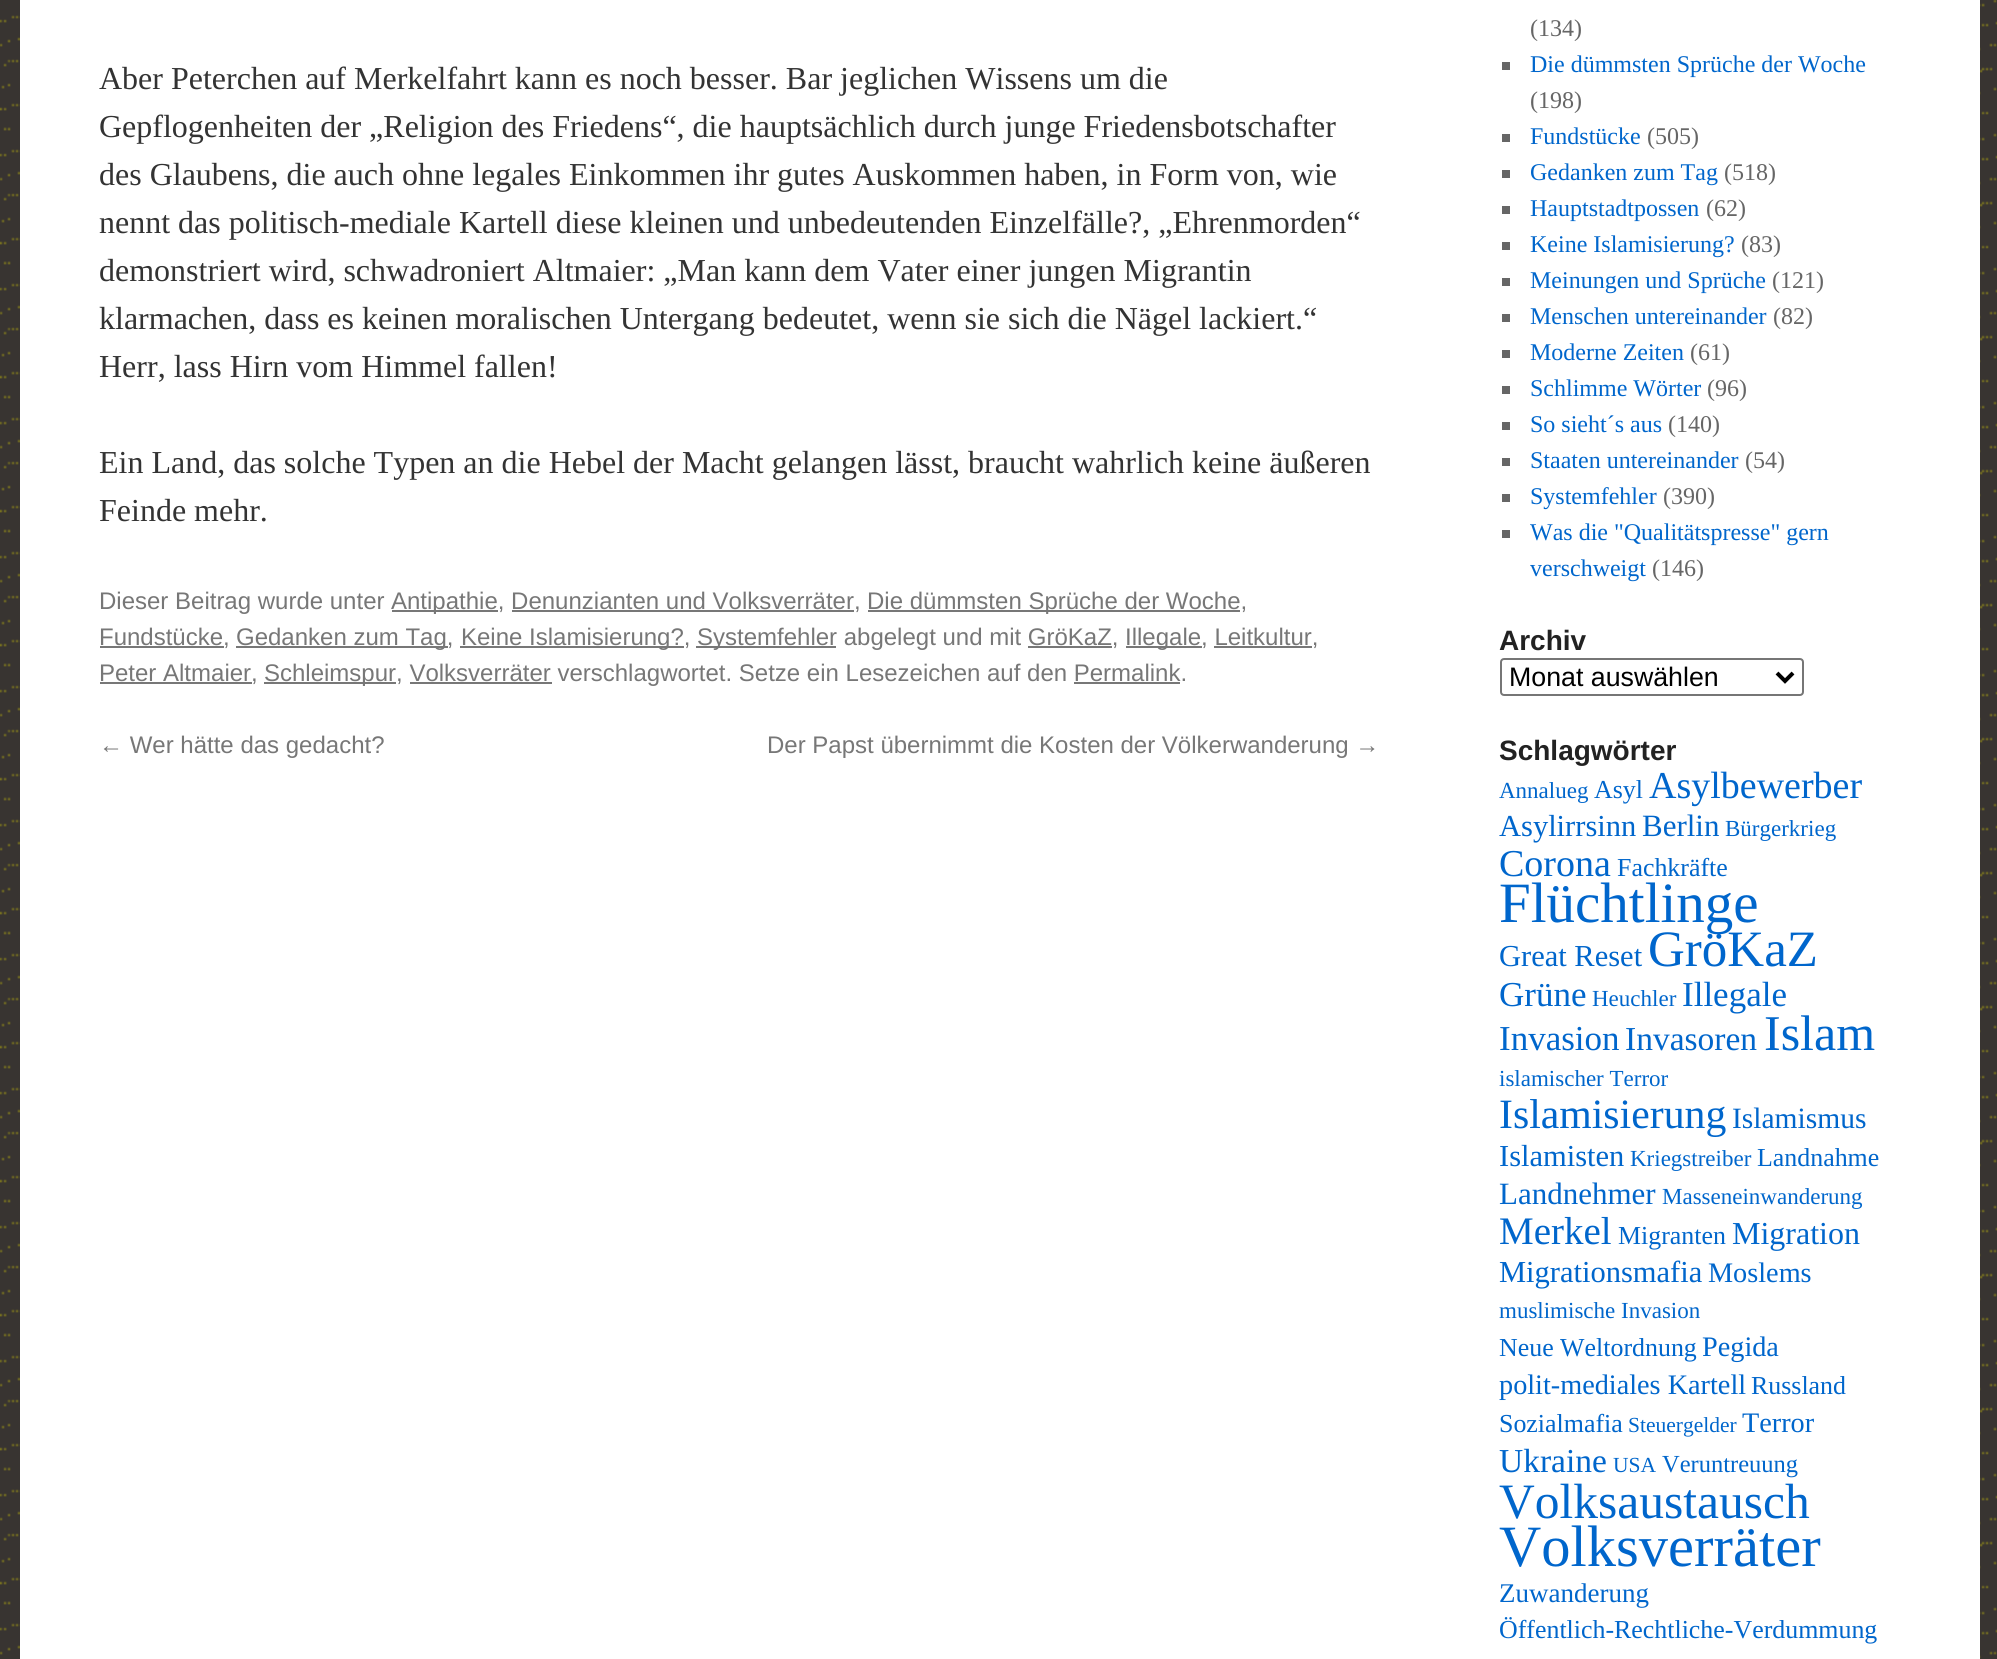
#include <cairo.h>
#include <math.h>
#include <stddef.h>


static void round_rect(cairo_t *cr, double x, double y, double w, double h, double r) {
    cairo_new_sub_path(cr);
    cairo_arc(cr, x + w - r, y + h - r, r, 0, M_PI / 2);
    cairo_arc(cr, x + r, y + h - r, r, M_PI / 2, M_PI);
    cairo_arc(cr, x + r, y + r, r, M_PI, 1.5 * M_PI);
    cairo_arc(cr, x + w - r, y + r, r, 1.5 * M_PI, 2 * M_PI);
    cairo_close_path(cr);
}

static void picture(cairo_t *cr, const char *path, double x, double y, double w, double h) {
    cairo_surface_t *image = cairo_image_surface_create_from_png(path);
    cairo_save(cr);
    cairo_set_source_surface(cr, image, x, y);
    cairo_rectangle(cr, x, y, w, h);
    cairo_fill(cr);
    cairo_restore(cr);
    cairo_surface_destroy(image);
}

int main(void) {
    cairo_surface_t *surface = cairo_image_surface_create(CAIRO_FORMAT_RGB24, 1997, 1659);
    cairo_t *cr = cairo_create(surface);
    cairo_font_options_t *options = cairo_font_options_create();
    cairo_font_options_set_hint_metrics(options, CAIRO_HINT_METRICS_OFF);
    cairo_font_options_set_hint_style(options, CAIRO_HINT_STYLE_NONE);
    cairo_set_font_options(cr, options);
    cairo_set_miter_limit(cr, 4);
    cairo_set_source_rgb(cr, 1, 1, 1);
    cairo_paint(cr);
    picture(cr, "img1.png", 0, 0, 1997, 1659);
    cairo_set_source_rgb(cr, 1, 1, 1);
    cairo_rectangle(cr, 20, 0, 1960, 1659);
    cairo_fill(cr);
    cairo_select_font_face(cr, "Liberation Serif", CAIRO_FONT_SLANT_NORMAL, CAIRO_FONT_WEIGHT_NORMAL);
    cairo_set_font_size(cr, 32);
    cairo_set_source_rgb(cr, 0.2, 0.2, 0.2);
    cairo_move_to(cr, 99, 89);
    cairo_show_text(cr, "Aber Peterchen auf Merkelfahrt kann es noch besser. Bar jeglichen Wissens um die");
    cairo_move_to(cr, 99, 137);
    cairo_show_text(cr, "Gepflogenheiten der „Religion des Friedens“, die hauptsächlich durch junge Friedensbotschafter");
    cairo_move_to(cr, 99, 185);
    cairo_show_text(cr, "des Glaubens, die auch ohne legales Einkommen ihr gutes Auskommen haben, in Form von, wie");
    cairo_move_to(cr, 99, 233);
    cairo_show_text(cr, "nennt das politisch-mediale Kartell diese kleinen und unbedeutenden Einzelfälle?, „Ehrenmorden“");
    cairo_move_to(cr, 99, 281);
    cairo_show_text(cr, "demonstriert wird, schwadroniert Altmaier: „Man kann dem Vater einer jungen Migrantin");
    cairo_move_to(cr, 99, 329);
    cairo_show_text(cr, "klarmachen, dass es keinen moralischen Untergang bedeutet, wenn sie sich die Nägel lackiert.“");
    cairo_move_to(cr, 99, 377);
    cairo_show_text(cr, "Herr, lass Hirn vom Himmel fallen!");
    cairo_move_to(cr, 99, 473);
    cairo_show_text(cr, "Ein Land, das solche Typen an die Hebel der Macht gelangen lässt, braucht wahrlich keine äußeren");
    cairo_move_to(cr, 99, 521);
    cairo_show_text(cr, "Feinde mehr.");
    cairo_select_font_face(cr, "Liberation Sans", CAIRO_FONT_SLANT_NORMAL, CAIRO_FONT_WEIGHT_NORMAL);
    cairo_set_font_size(cr, 24);
    cairo_set_source_rgb(cr, 0.467, 0.467, 0.467);
    cairo_move_to(cr, 99, 609);
    cairo_show_text(cr, "Dieser Beitrag wurde unter");
    cairo_rectangle(cr, 392, 610, 106, 2);
    cairo_fill(cr);
    cairo_move_to(cr, 391, 609);
    cairo_show_text(cr, "Antipathie, Denunzianten und Volksverräter,");
    cairo_rectangle(cr, 868, 610, 372, 2);
    cairo_fill(cr);
    cairo_move_to(cr, 867, 609);
    cairo_show_text(cr, "Die dümmsten Sprüche der Woche,");
    cairo_rectangle(cr, 512, 610, 342, 2);
    cairo_fill(cr);
    cairo_rectangle(cr, 100, 646, 124, 2);
    cairo_fill(cr);
    cairo_move_to(cr, 99, 645);
    cairo_show_text(cr, "Fundstücke,");
    cairo_rectangle(cr, 236, 646, 212, 2);
    cairo_fill(cr);
    cairo_move_to(cr, 236, 645);
    cairo_show_text(cr, "Gedanken zum Tag,");
    cairo_rectangle(cr, 460, 646, 224, 2);
    cairo_fill(cr);
    cairo_move_to(cr, 461, 645);
    cairo_show_text(cr, "Keine Islamisierung?,");
    cairo_rectangle(cr, 696, 646, 140, 2);
    cairo_fill(cr);
    cairo_move_to(cr, 697, 645);
    cairo_show_text(cr, "Systemfehler abgelegt und mit GröKaZ,");
    cairo_rectangle(cr, 1126, 646, 76, 2);
    cairo_fill(cr);
    cairo_move_to(cr, 1125, 645);
    cairo_show_text(cr, "Illegale, Leitkultur,");
    cairo_rectangle(cr, 1028, 646, 84, 2);
    cairo_fill(cr);
    cairo_rectangle(cr, 1214, 646, 98, 2);
    cairo_fill(cr);
    cairo_rectangle(cr, 100, 682, 152, 2);
    cairo_fill(cr);
    cairo_move_to(cr, 99, 681);
    cairo_show_text(cr, "Peter Altmaier,");
    cairo_rectangle(cr, 264, 682, 132, 2);
    cairo_fill(cr);
    cairo_move_to(cr, 264, 681);
    cairo_show_text(cr, "Schleimspur, Volksverräter verschlagwortet. Setze ein Lesezeichen auf den Permalink.");
    cairo_rectangle(cr, 410, 682, 142, 2);
    cairo_fill(cr);
    cairo_rectangle(cr, 1074, 682, 106, 2);
    cairo_fill(cr);
    cairo_move_to(cr, 99, 753);
    cairo_show_text(cr, "← Wer hätte das gedacht?");
    cairo_move_to(cr, 767, 753);
    cairo_show_text(cr, "Der Papst übernimmt die Kosten der Völkerwanderung →");
    cairo_select_font_face(cr, "Liberation Serif", CAIRO_FONT_SLANT_NORMAL, CAIRO_FONT_WEIGHT_NORMAL);
    cairo_set_source_rgb(cr, 0.4, 0.4, 0.4);
    cairo_move_to(cr, 1530, 36);
    cairo_show_text(cr, "(134)");
    cairo_rectangle(cr, 1502, 62, 8, 8);
    cairo_fill(cr);
    cairo_set_source_rgb(cr, 0, 0.4, 0.8);
    cairo_move_to(cr, 1530, 72);
    cairo_show_text(cr, "Die dümmsten Sprüche der Woche");
    cairo_set_source_rgb(cr, 0.4, 0.4, 0.4);
    cairo_move_to(cr, 1530, 108);
    cairo_show_text(cr, "(198)");
    cairo_rectangle(cr, 1502, 134, 8, 8);
    cairo_fill(cr);
    cairo_set_source_rgb(cr, 0, 0.4, 0.8);
    cairo_move_to(cr, 1530, 144);
    cairo_show_text(cr, "Fundstücke");
    cairo_set_source_rgb(cr, 0.4, 0.4, 0.4);
    cairo_move_to(cr, 1647, 144);
    cairo_show_text(cr, "(505)");
    cairo_rectangle(cr, 1502, 170, 8, 8);
    cairo_fill(cr);
    cairo_set_source_rgb(cr, 0, 0.4, 0.8);
    cairo_move_to(cr, 1530, 180);
    cairo_show_text(cr, "Gedanken zum Tag");
    cairo_set_source_rgb(cr, 0.4, 0.4, 0.4);
    cairo_move_to(cr, 1724, 180);
    cairo_show_text(cr, "(518)");
    cairo_rectangle(cr, 1502, 206, 8, 8);
    cairo_fill(cr);
    cairo_set_source_rgb(cr, 0, 0.4, 0.8);
    cairo_move_to(cr, 1530, 216);
    cairo_show_text(cr, "Hauptstadtpossen");
    cairo_set_source_rgb(cr, 0.4, 0.4, 0.4);
    cairo_move_to(cr, 1706, 216);
    cairo_show_text(cr, "(62)");
    cairo_rectangle(cr, 1502, 242, 8, 8);
    cairo_fill(cr);
    cairo_set_source_rgb(cr, 0, 0.4, 0.8);
    cairo_move_to(cr, 1530, 252);
    cairo_show_text(cr, "Keine Islamisierung?");
    cairo_set_source_rgb(cr, 0.4, 0.4, 0.4);
    cairo_move_to(cr, 1741, 252);
    cairo_show_text(cr, "(83)");
    cairo_rectangle(cr, 1502, 278, 8, 8);
    cairo_fill(cr);
    cairo_set_source_rgb(cr, 0, 0.4, 0.8);
    cairo_move_to(cr, 1530, 288);
    cairo_show_text(cr, "Meinungen und Sprüche");
    cairo_set_source_rgb(cr, 0.4, 0.4, 0.4);
    cairo_move_to(cr, 1772, 288);
    cairo_show_text(cr, "(121)");
    cairo_rectangle(cr, 1502, 314, 8, 8);
    cairo_fill(cr);
    cairo_set_source_rgb(cr, 0, 0.4, 0.8);
    cairo_move_to(cr, 1530, 324);
    cairo_show_text(cr, "Menschen untereinander");
    cairo_set_source_rgb(cr, 0.4, 0.4, 0.4);
    cairo_move_to(cr, 1773, 324);
    cairo_show_text(cr, "(82)");
    cairo_rectangle(cr, 1502, 350, 8, 8);
    cairo_fill(cr);
    cairo_set_source_rgb(cr, 0, 0.4, 0.8);
    cairo_move_to(cr, 1530, 360);
    cairo_show_text(cr, "Moderne Zeiten");
    cairo_set_source_rgb(cr, 0.4, 0.4, 0.4);
    cairo_move_to(cr, 1690, 360);
    cairo_show_text(cr, "(61)");
    cairo_rectangle(cr, 1502, 386, 8, 8);
    cairo_fill(cr);
    cairo_set_source_rgb(cr, 0, 0.4, 0.8);
    cairo_move_to(cr, 1530, 396);
    cairo_show_text(cr, "Schlimme Wörter");
    cairo_set_source_rgb(cr, 0.4, 0.4, 0.4);
    cairo_move_to(cr, 1707, 396);
    cairo_show_text(cr, "(96)");
    cairo_rectangle(cr, 1502, 422, 8, 8);
    cairo_fill(cr);
    cairo_set_source_rgb(cr, 0, 0.4, 0.8);
    cairo_move_to(cr, 1530, 432);
    cairo_show_text(cr, "So sieht´s aus");
    cairo_set_source_rgb(cr, 0.4, 0.4, 0.4);
    cairo_move_to(cr, 1668, 432);
    cairo_show_text(cr, "(140)");
    cairo_rectangle(cr, 1502, 458, 8, 8);
    cairo_fill(cr);
    cairo_set_source_rgb(cr, 0, 0.4, 0.8);
    cairo_move_to(cr, 1530, 468);
    cairo_show_text(cr, "Staaten untereinander");
    cairo_set_source_rgb(cr, 0.4, 0.4, 0.4);
    cairo_move_to(cr, 1745, 468);
    cairo_show_text(cr, "(54)");
    cairo_rectangle(cr, 1502, 494, 8, 8);
    cairo_fill(cr);
    cairo_set_source_rgb(cr, 0, 0.4, 0.8);
    cairo_move_to(cr, 1530, 504);
    cairo_show_text(cr, "Systemfehler");
    cairo_set_source_rgb(cr, 0.4, 0.4, 0.4);
    cairo_move_to(cr, 1663, 504);
    cairo_show_text(cr, "(390)");
    cairo_rectangle(cr, 1502, 530, 8, 8);
    cairo_fill(cr);
    cairo_set_source_rgb(cr, 0, 0.4, 0.8);
    cairo_move_to(cr, 1530, 540);
    cairo_show_text(cr, "Was die \"Qualitätspresse\" gern");
    cairo_move_to(cr, 1530, 576);
    cairo_show_text(cr, "verschweigt");
    cairo_set_source_rgb(cr, 0.4, 0.4, 0.4);
    cairo_move_to(cr, 1652, 576);
    cairo_show_text(cr, "(146)");
    cairo_select_font_face(cr, "Liberation Sans", CAIRO_FONT_SLANT_NORMAL, CAIRO_FONT_WEIGHT_BOLD);
    cairo_set_font_size(cr, 28);
    cairo_set_source_rgb(cr, 0.133, 0.133, 0.133);
    cairo_move_to(cr, 1499, 650);
    cairo_show_text(cr, "Archiv");
    round_rect(cr, 1501, 659, 302, 36, 3);
    cairo_set_source_rgb(cr, 0.463, 0.463, 0.463);
    cairo_stroke(cr);
    cairo_new_path(cr);
    cairo_move_to(cr, 1777, 673);
    cairo_line_to(cr, 1785, 681);
    cairo_line_to(cr, 1793, 673);
    cairo_set_source_rgb(cr, 0, 0, 0);
    cairo_set_line_width(cr, 4);
    cairo_stroke(cr);
    cairo_select_font_face(cr, "Liberation Sans", CAIRO_FONT_SLANT_NORMAL, CAIRO_FONT_WEIGHT_NORMAL);
    cairo_set_font_size(cr, 26.75);
    cairo_move_to(cr, 1509, 686);
    cairo_show_text(cr, "Monat auswählen");
    cairo_select_font_face(cr, "Liberation Sans", CAIRO_FONT_SLANT_NORMAL, CAIRO_FONT_WEIGHT_BOLD);
    cairo_set_font_size(cr, 28);
    cairo_set_source_rgb(cr, 0.133, 0.133, 0.133);
    cairo_move_to(cr, 1499, 760);
    cairo_show_text(cr, "Schlagwörter");
    cairo_select_font_face(cr, "Liberation Serif", CAIRO_FONT_SLANT_NORMAL, CAIRO_FONT_WEIGHT_NORMAL);
    cairo_set_font_size(cr, 23);
    cairo_set_source_rgb(cr, 0, 0.4, 0.8);
    cairo_move_to(cr, 1499, 798);
    cairo_show_text(cr, "Annalueg");
    cairo_set_font_size(cr, 25.9);
    cairo_move_to(cr, 1594, 798);
    cairo_show_text(cr, "Asyl");
    cairo_set_font_size(cr, 38);
    cairo_move_to(cr, 1649, 798);
    cairo_show_text(cr, "Asylbewerber");
    cairo_set_font_size(cr, 30.5);
    cairo_move_to(cr, 1499, 836);
    cairo_show_text(cr, "Asylirrsinn");
    cairo_set_font_size(cr, 31);
    cairo_move_to(cr, 1642, 836);
    cairo_show_text(cr, "Berlin");
    cairo_set_font_size(cr, 23);
    cairo_move_to(cr, 1725, 836);
    cairo_show_text(cr, "Bürgerkrieg");
    cairo_set_font_size(cr, 38);
    cairo_move_to(cr, 1499, 876);
    cairo_show_text(cr, "Corona");
    cairo_set_font_size(cr, 25.9);
    cairo_move_to(cr, 1617, 876);
    cairo_show_text(cr, "Fachkräfte");
    cairo_set_font_size(cr, 57);
    cairo_move_to(cr, 1499, 922);
    cairo_show_text(cr, "Flüchtlinge");
    cairo_set_font_size(cr, 30.5);
    cairo_move_to(cr, 1499, 966);
    cairo_show_text(cr, "Great Reset");
    cairo_set_font_size(cr, 51);
    cairo_move_to(cr, 1648, 966);
    cairo_show_text(cr, "GröKaZ");
    cairo_set_font_size(cr, 35);
    cairo_move_to(cr, 1499, 1006);
    cairo_show_text(cr, "Grüne");
    cairo_set_font_size(cr, 23);
    cairo_move_to(cr, 1592, 1006);
    cairo_show_text(cr, "Heuchler");
    cairo_set_font_size(cr, 35);
    cairo_move_to(cr, 1682, 1006);
    cairo_show_text(cr, "Illegale");
    cairo_move_to(cr, 1499, 1050);
    cairo_show_text(cr, "Invasion");
    cairo_set_font_size(cr, 33.5);
    cairo_move_to(cr, 1625, 1050);
    cairo_show_text(cr, "Invasoren");
    cairo_set_font_size(cr, 50);
    cairo_move_to(cr, 1764, 1050);
    cairo_show_text(cr, "Islam");
    cairo_set_font_size(cr, 23);
    cairo_move_to(cr, 1499, 1086);
    cairo_show_text(cr, "islamischer Terror");
    cairo_set_font_size(cr, 41.75);
    cairo_move_to(cr, 1499, 1128);
    cairo_show_text(cr, "Islamisierung");
    cairo_set_font_size(cr, 29.5);
    cairo_move_to(cr, 1732, 1128);
    cairo_show_text(cr, "Islamismus");
    cairo_set_font_size(cr, 30.5);
    cairo_move_to(cr, 1499, 1166);
    cairo_show_text(cr, "Islamisten");
    cairo_set_font_size(cr, 23);
    cairo_move_to(cr, 1630, 1166);
    cairo_show_text(cr, "Kriegstreiber");
    cairo_set_font_size(cr, 25.9);
    cairo_move_to(cr, 1757, 1166);
    cairo_show_text(cr, "Landnahme");
    cairo_set_font_size(cr, 31);
    cairo_move_to(cr, 1499, 1204);
    cairo_show_text(cr, "Landnehmer");
    cairo_set_font_size(cr, 23);
    cairo_move_to(cr, 1662, 1204);
    cairo_show_text(cr, "Masseneinwanderung");
    cairo_set_font_size(cr, 39);
    cairo_move_to(cr, 1499, 1244);
    cairo_show_text(cr, "Merkel");
    cairo_set_font_size(cr, 25.9);
    cairo_move_to(cr, 1618, 1244);
    cairo_show_text(cr, "Migranten");
    cairo_set_font_size(cr, 32);
    cairo_move_to(cr, 1732, 1244);
    cairo_show_text(cr, "Migration");
    cairo_set_font_size(cr, 30.5);
    cairo_move_to(cr, 1499, 1282);
    cairo_show_text(cr, "Migrationsmafia");
    cairo_set_font_size(cr, 28.25);
    cairo_move_to(cr, 1708, 1282);
    cairo_show_text(cr, "Moslems");
    cairo_set_font_size(cr, 23);
    cairo_move_to(cr, 1499, 1318);
    cairo_show_text(cr, "muslimische Invasion");
    cairo_set_font_size(cr, 25.9);
    cairo_move_to(cr, 1499, 1356);
    cairo_show_text(cr, "Neue Weltordnung");
    cairo_set_font_size(cr, 28.25);
    cairo_move_to(cr, 1702, 1356);
    cairo_show_text(cr, "Pegida");
    cairo_move_to(cr, 1499, 1394);
    cairo_show_text(cr, "polit-mediales Kartell");
    cairo_set_font_size(cr, 25.9);
    cairo_move_to(cr, 1751, 1394);
    cairo_show_text(cr, "Russland");
    cairo_move_to(cr, 1499, 1432);
    cairo_show_text(cr, "Sozialmafia");
    cairo_set_font_size(cr, 21.5);
    cairo_move_to(cr, 1628, 1432);
    cairo_show_text(cr, "Steuergelder");
    cairo_set_font_size(cr, 28.25);
    cairo_move_to(cr, 1742, 1432);
    cairo_show_text(cr, "Terror");
    cairo_set_font_size(cr, 33.5);
    cairo_move_to(cr, 1499, 1472);
    cairo_show_text(cr, "Ukraine");
    cairo_set_font_size(cr, 21.5);
    cairo_move_to(cr, 1613, 1472);
    cairo_show_text(cr, "USA");
    cairo_set_font_size(cr, 24.5);
    cairo_move_to(cr, 1662, 1472);
    cairo_show_text(cr, "Veruntreuung");
    cairo_set_font_size(cr, 49.5);
    cairo_move_to(cr, 1499, 1518);
    cairo_show_text(cr, "Volksaustausch");
    cairo_set_font_size(cr, 58.5);
    cairo_move_to(cr, 1499, 1566);
    cairo_show_text(cr, "Volksverräter");
    cairo_set_font_size(cr, 27);
    cairo_move_to(cr, 1499, 1602);
    cairo_show_text(cr, "Zuwanderung");
    cairo_set_font_size(cr, 25.9);
    cairo_move_to(cr, 1499, 1638);
    cairo_show_text(cr, "Öffentlich-Rechtliche-Verdummung");
    cairo_surface_write_to_png(surface, "page.png");
    cairo_font_options_destroy(options);
    cairo_destroy(cr);
    cairo_surface_destroy(surface);
    return 0;
}
